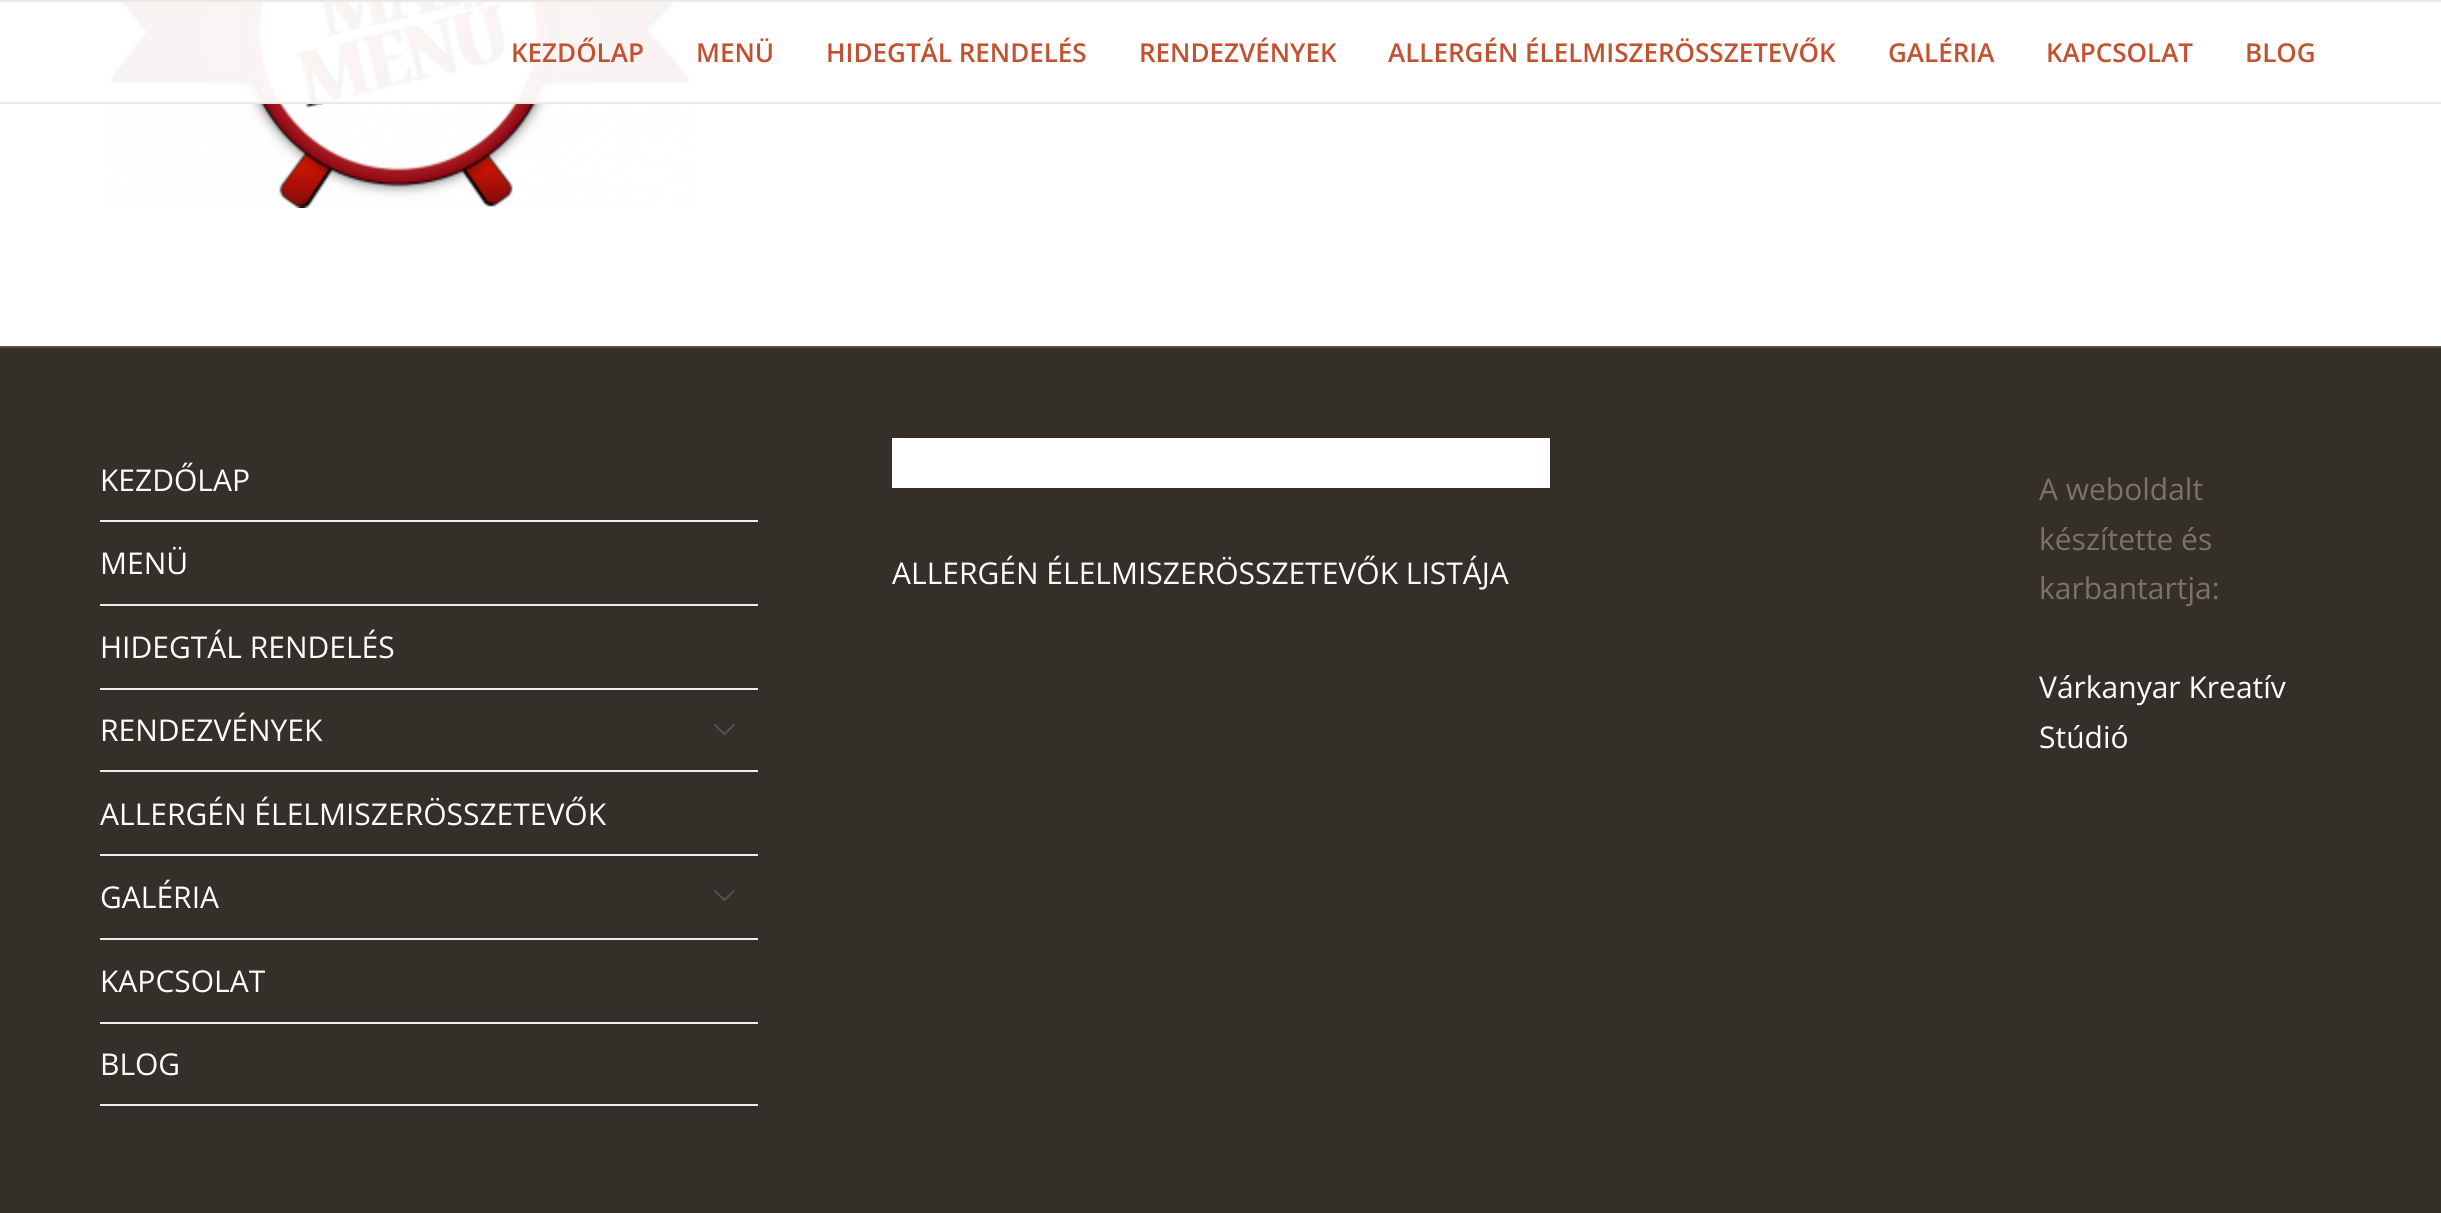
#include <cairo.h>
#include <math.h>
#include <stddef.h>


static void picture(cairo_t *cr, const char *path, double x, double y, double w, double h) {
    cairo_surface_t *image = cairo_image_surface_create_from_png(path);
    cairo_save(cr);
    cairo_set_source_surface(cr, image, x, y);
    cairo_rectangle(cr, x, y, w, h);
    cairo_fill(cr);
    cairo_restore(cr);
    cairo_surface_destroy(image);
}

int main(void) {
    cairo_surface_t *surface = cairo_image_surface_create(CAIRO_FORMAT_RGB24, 2441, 1213);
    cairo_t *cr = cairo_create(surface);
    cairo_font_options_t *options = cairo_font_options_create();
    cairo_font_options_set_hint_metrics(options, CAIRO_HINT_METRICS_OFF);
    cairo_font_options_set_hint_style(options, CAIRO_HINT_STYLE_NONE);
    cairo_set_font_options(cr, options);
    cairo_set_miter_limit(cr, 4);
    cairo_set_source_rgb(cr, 1, 1, 1);
    cairo_paint(cr);
    picture(cr, "img1.png", 107, 2, 586, 206);
    cairo_set_source_rgba(cr, 1, 1, 1, 0.95);
    cairo_rectangle(cr, 107, 2, 586, 100);
    cairo_fill(cr);
    cairo_set_source_rgb(cr, 0.922, 0.91, 0.886);
    cairo_rectangle(cr, 0, 0, 2441, 2);
    cairo_fill(cr);
    cairo_rectangle(cr, 0, 102, 2441, 2);
    cairo_fill(cr);
    cairo_select_font_face(cr, "Open Sans SemiBold", CAIRO_FONT_SLANT_NORMAL, CAIRO_FONT_WEIGHT_NORMAL);
    cairo_set_font_size(cr, 26);
    cairo_set_source_rgb(cr, 0.765, 0.318, 0.184);
    cairo_move_to(cr, 511, 62);
    cairo_show_text(cr, "KEZDŐLAP");
    cairo_move_to(cr, 696, 62);
    cairo_show_text(cr, "MENÜ");
    cairo_move_to(cr, 826, 62);
    cairo_show_text(cr, "HIDEGTÁL RENDELÉS");
    cairo_move_to(cr, 1139, 62);
    cairo_show_text(cr, "RENDEZVÉNYEK");
    cairo_move_to(cr, 1388, 62);
    cairo_show_text(cr, "ALLERGÉN ÉLELMISZERÖSSZETEVŐK");
    cairo_move_to(cr, 1888, 62);
    cairo_show_text(cr, "GALÉRIA");
    cairo_move_to(cr, 2046, 62);
    cairo_show_text(cr, "KAPCSOLAT");
    cairo_move_to(cr, 2245, 62);
    cairo_show_text(cr, "BLOG");
    cairo_set_source_rgb(cr, 0.204, 0.184, 0.161);
    cairo_rectangle(cr, 0, 348, 2441, 865);
    cairo_fill(cr);
    cairo_set_source_rgb(cr, 0.341, 0.318, 0.286);
    cairo_rectangle(cr, 0, 346, 2441, 2);
    cairo_fill(cr);
    cairo_set_source_rgb(cr, 0.933, 0.933, 0.933);
    cairo_rectangle(cr, 100, 520, 658, 2);
    cairo_fill(cr);
    cairo_select_font_face(cr, "Open Sans", CAIRO_FONT_SLANT_NORMAL, CAIRO_FONT_WEIGHT_NORMAL);
    cairo_set_font_size(cr, 30);
    cairo_set_source_rgb(cr, 1, 1, 1);
    cairo_move_to(cr, 100, 491);
    cairo_show_text(cr, "KEZDŐLAP");
    cairo_set_source_rgb(cr, 0.933, 0.933, 0.933);
    cairo_rectangle(cr, 100, 604, 658, 2);
    cairo_fill(cr);
    cairo_set_source_rgb(cr, 1, 1, 1);
    cairo_move_to(cr, 100, 574);
    cairo_show_text(cr, "MENÜ");
    cairo_set_source_rgb(cr, 0.933, 0.933, 0.933);
    cairo_rectangle(cr, 100, 688, 658, 2);
    cairo_fill(cr);
    cairo_set_source_rgb(cr, 1, 1, 1);
    cairo_move_to(cr, 100, 658);
    cairo_show_text(cr, "HIDEGTÁL RENDELÉS");
    cairo_set_source_rgb(cr, 0.933, 0.933, 0.933);
    cairo_rectangle(cr, 100, 770, 658, 2);
    cairo_fill(cr);
    cairo_set_source_rgb(cr, 1, 1, 1);
    cairo_move_to(cr, 100, 741);
    cairo_show_text(cr, "RENDEZVÉNYEK");
    picture(cr, "img2.png", 714, 724, 21, 11);
    cairo_set_source_rgb(cr, 0.933, 0.933, 0.933);
    cairo_rectangle(cr, 100, 854, 658, 2);
    cairo_fill(cr);
    cairo_set_source_rgb(cr, 1, 1, 1);
    cairo_move_to(cr, 100, 825);
    cairo_show_text(cr, "ALLERGÉN ÉLELMISZERÖSSZETEVŐK");
    cairo_set_source_rgb(cr, 0.933, 0.933, 0.933);
    cairo_rectangle(cr, 100, 938, 658, 2);
    cairo_fill(cr);
    cairo_set_source_rgb(cr, 1, 1, 1);
    cairo_move_to(cr, 100, 908);
    cairo_show_text(cr, "GALÉRIA");
    picture(cr, "img2.png", 714, 890, 21, 11);
    cairo_set_source_rgb(cr, 0.933, 0.933, 0.933);
    cairo_rectangle(cr, 100, 1022, 658, 2);
    cairo_fill(cr);
    cairo_set_source_rgb(cr, 1, 1, 1);
    cairo_move_to(cr, 100, 992);
    cairo_show_text(cr, "KAPCSOLAT");
    cairo_set_source_rgb(cr, 0.933, 0.933, 0.933);
    cairo_rectangle(cr, 100, 1104, 658, 2);
    cairo_fill(cr);
    cairo_set_source_rgb(cr, 1, 1, 1);
    cairo_move_to(cr, 100, 1075);
    cairo_show_text(cr, "BLOG");
    cairo_rectangle(cr, 892, 438, 658, 50);
    cairo_fill(cr);
    cairo_move_to(cr, 892, 584);
    cairo_show_text(cr, "ALLERGÉN ÉLELMISZERÖSSZETEVŐK LISTÁJA");
    cairo_set_source_rgb(cr, 0.482, 0.451, 0.408);
    cairo_move_to(cr, 2039, 500);
    cairo_show_text(cr, "A weboldalt");
    cairo_move_to(cr, 2039, 550);
    cairo_show_text(cr, "készítette és");
    cairo_move_to(cr, 2039, 599);
    cairo_show_text(cr, "karbantartja:");
    cairo_set_source_rgb(cr, 1, 1, 1);
    cairo_move_to(cr, 2039, 698);
    cairo_show_text(cr, "Várkanyar Kreatív");
    cairo_move_to(cr, 2039, 748);
    cairo_show_text(cr, "Stúdió");
    cairo_surface_write_to_png(surface, "page.png");
    cairo_font_options_destroy(options);
    cairo_destroy(cr);
    cairo_surface_destroy(surface);
    return 0;
}
